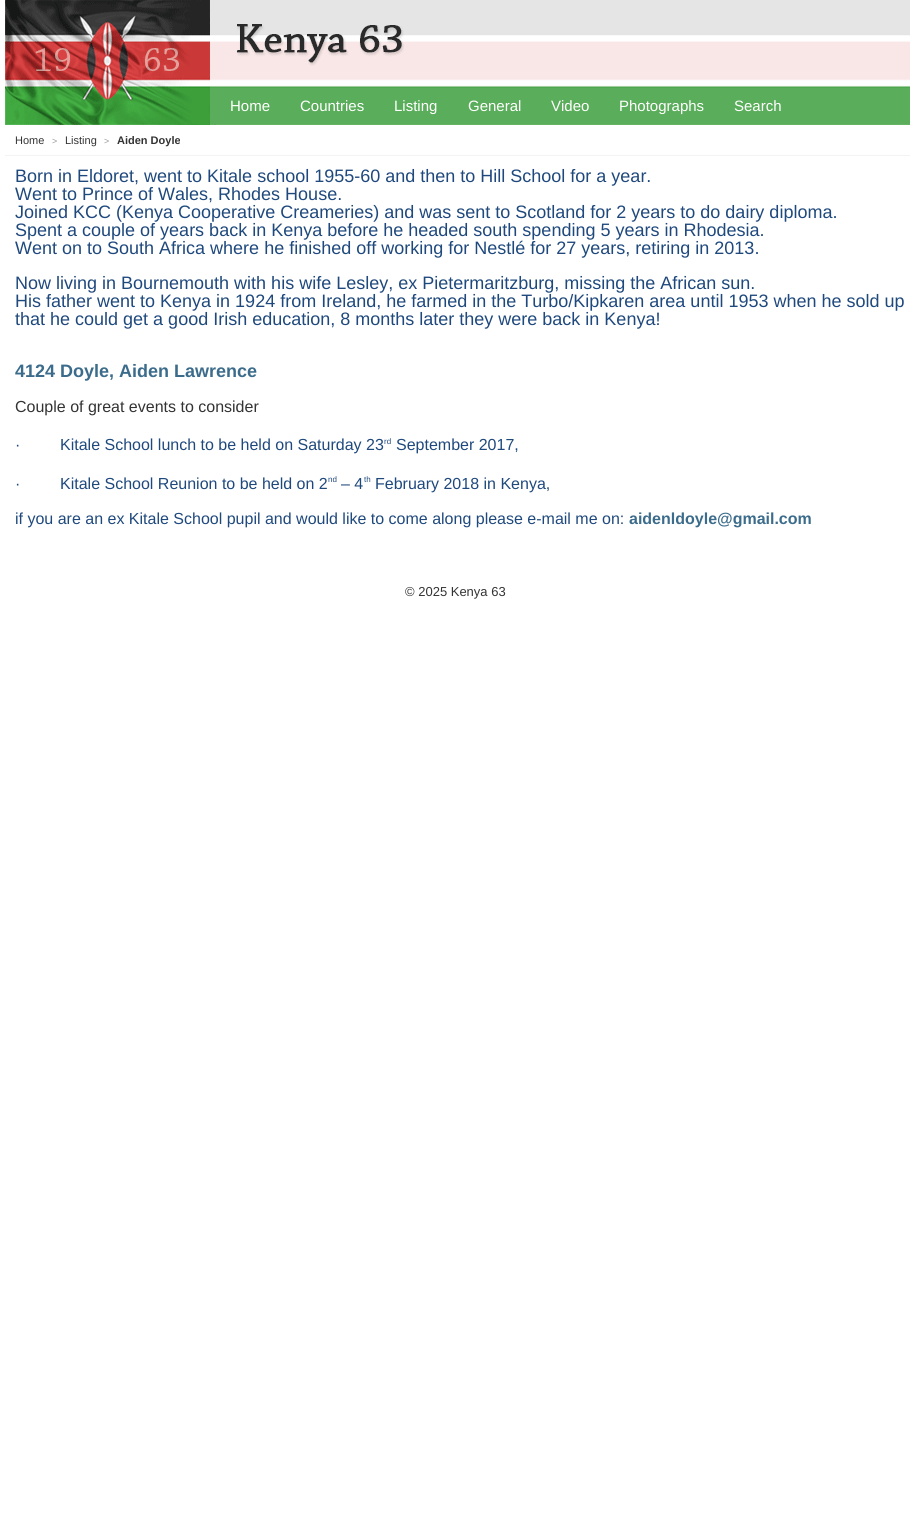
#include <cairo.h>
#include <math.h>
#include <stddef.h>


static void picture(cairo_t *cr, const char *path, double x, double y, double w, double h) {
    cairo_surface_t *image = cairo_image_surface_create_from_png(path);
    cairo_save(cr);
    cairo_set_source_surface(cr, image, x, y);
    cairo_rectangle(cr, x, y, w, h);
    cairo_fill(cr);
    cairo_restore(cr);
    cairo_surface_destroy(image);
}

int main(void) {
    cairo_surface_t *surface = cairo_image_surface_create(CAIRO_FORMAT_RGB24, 910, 1536);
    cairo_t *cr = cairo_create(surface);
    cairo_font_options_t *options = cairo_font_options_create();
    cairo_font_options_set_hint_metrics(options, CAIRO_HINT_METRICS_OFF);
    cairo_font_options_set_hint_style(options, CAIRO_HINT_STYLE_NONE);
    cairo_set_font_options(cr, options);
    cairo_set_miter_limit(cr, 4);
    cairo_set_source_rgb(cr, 1, 1, 1);
    cairo_paint(cr);
    picture(cr, "img1.png", 5, 0, 905, 125);
    cairo_select_font_face(cr, "Liberation Sans", CAIRO_FONT_SLANT_NORMAL, CAIRO_FONT_WEIGHT_NORMAL);
    cairo_set_font_size(cr, 15);
    cairo_set_source_rgb(cr, 1, 1, 1);
    cairo_move_to(cr, 230, 111);
    cairo_show_text(cr, "Home");
    cairo_move_to(cr, 300, 111);
    cairo_show_text(cr, "Countries");
    cairo_move_to(cr, 394, 111);
    cairo_show_text(cr, "Listing");
    cairo_move_to(cr, 468, 111);
    cairo_show_text(cr, "General");
    cairo_move_to(cr, 551, 111);
    cairo_show_text(cr, "Video");
    cairo_move_to(cr, 619, 111);
    cairo_show_text(cr, "Photographs");
    cairo_move_to(cr, 734, 111);
    cairo_show_text(cr, "Search");
    cairo_set_source_rgb(cr, 0.953, 0.953, 0.953);
    cairo_rectangle(cr, 5, 155, 905, 1);
    cairo_fill(cr);
    cairo_set_font_size(cr, 11);
    cairo_set_source_rgb(cr, 0.2, 0.2, 0.2);
    cairo_move_to(cr, 15, 144);
    cairo_show_text(cr, "Home");
    cairo_set_font_size(cr, 9);
    cairo_set_source_rgb(cr, 0.6, 0.6, 0.6);
    cairo_move_to(cr, 52, 144);
    cairo_show_text(cr, ">");
    cairo_set_font_size(cr, 11);
    cairo_set_source_rgb(cr, 0.2, 0.2, 0.2);
    cairo_move_to(cr, 65, 144);
    cairo_show_text(cr, "Listing");
    cairo_set_font_size(cr, 9);
    cairo_set_source_rgb(cr, 0.6, 0.6, 0.6);
    cairo_move_to(cr, 104, 144);
    cairo_show_text(cr, ">");
    cairo_select_font_face(cr, "Liberation Sans", CAIRO_FONT_SLANT_NORMAL, CAIRO_FONT_WEIGHT_BOLD);
    cairo_set_font_size(cr, 11);
    cairo_set_source_rgb(cr, 0.2, 0.2, 0.2);
    cairo_move_to(cr, 117, 144);
    cairo_show_text(cr, "Aiden Doyle");
    cairo_select_font_face(cr, "Liberation Sans", CAIRO_FONT_SLANT_NORMAL, CAIRO_FONT_WEIGHT_NORMAL);
    cairo_set_font_size(cr, 18);
    cairo_set_source_rgb(cr, 0.122, 0.286, 0.49);
    cairo_move_to(cr, 15, 182);
    cairo_show_text(cr, "Born in Eldoret, went to Kitale school 1955-60 and then to Hill School for a year.");
    cairo_move_to(cr, 15, 200);
    cairo_show_text(cr, "Went to Prince of Wales, Rhodes House.");
    cairo_move_to(cr, 15, 218);
    cairo_show_text(cr, "Joined KCC (Kenya Cooperative Creameries) and was sent to Scotland for 2 years to do dairy diploma.");
    cairo_move_to(cr, 15, 236);
    cairo_show_text(cr, "Spent a couple of years back in Kenya before he headed south spending 5 years in Rhodesia.");
    cairo_move_to(cr, 15, 254);
    cairo_show_text(cr, "Went on to South Africa where he finished off working for Nestlé for 27 years, retiring in 2013.");
    cairo_move_to(cr, 15, 289);
    cairo_show_text(cr, "Now living in Bournemouth with his wife Lesley, ex Pietermaritzburg, missing the African sun.");
    cairo_move_to(cr, 15, 307);
    cairo_show_text(cr, "His father went to Kenya in 1924 from Ireland, he farmed in the Turbo/Kipkaren area until 1953 when he sold up");
    cairo_move_to(cr, 15, 325);
    cairo_show_text(cr, "that he could get a good Irish education, 8 months later they were back in Kenya!");
    cairo_select_font_face(cr, "Liberation Sans", CAIRO_FONT_SLANT_NORMAL, CAIRO_FONT_WEIGHT_BOLD);
    cairo_set_source_rgb(cr, 0.235, 0.424, 0.545);
    cairo_move_to(cr, 15, 377);
    cairo_show_text(cr, "4124 Doyle, Aiden Lawrence");
    cairo_select_font_face(cr, "Liberation Sans", CAIRO_FONT_SLANT_NORMAL, CAIRO_FONT_WEIGHT_NORMAL);
    cairo_set_font_size(cr, 16);
    cairo_set_source_rgb(cr, 0.2, 0.2, 0.2);
    cairo_move_to(cr, 15, 412);
    cairo_show_text(cr, "Couple of great events to consider");
    cairo_set_source_rgb(cr, 0.122, 0.286, 0.49);
    cairo_move_to(cr, 15, 450);
    cairo_show_text(cr, "·");
    cairo_move_to(cr, 60, 450);
    cairo_show_text(cr, "Kitale School lunch to be held on Saturday 23");
    cairo_set_font_size(cr, 8);
    cairo_move_to(cr, 384, 444);
    cairo_show_text(cr, "rd");
    cairo_set_font_size(cr, 16);
    cairo_move_to(cr, 396, 450);
    cairo_show_text(cr, "September 2017,");
    cairo_move_to(cr, 15, 489);
    cairo_show_text(cr, "·");
    cairo_move_to(cr, 60, 489);
    cairo_show_text(cr, "Kitale School Reunion to be held on 2");
    cairo_set_font_size(cr, 8);
    cairo_move_to(cr, 328, 482);
    cairo_show_text(cr, "nd");
    cairo_set_font_size(cr, 16);
    cairo_move_to(cr, 341, 489);
    cairo_show_text(cr, "– 4");
    cairo_set_font_size(cr, 8);
    cairo_move_to(cr, 364, 482);
    cairo_show_text(cr, "th");
    cairo_set_font_size(cr, 16);
    cairo_move_to(cr, 375, 489);
    cairo_show_text(cr, "February 2018 in Kenya,");
    cairo_move_to(cr, 15, 524);
    cairo_show_text(cr, "if you are an ex Kitale School pupil and would like to come along please e-mail me on:");
    cairo_select_font_face(cr, "Liberation Sans", CAIRO_FONT_SLANT_NORMAL, CAIRO_FONT_WEIGHT_BOLD);
    cairo_set_source_rgb(cr, 0.235, 0.424, 0.545);
    cairo_move_to(cr, 629, 524);
    cairo_show_text(cr, "aidenldoyle@gmail.com");
    cairo_select_font_face(cr, "Liberation Sans", CAIRO_FONT_SLANT_NORMAL, CAIRO_FONT_WEIGHT_NORMAL);
    cairo_set_font_size(cr, 13);
    cairo_set_source_rgb(cr, 0.2, 0.2, 0.2);
    cairo_move_to(cr, 405, 596);
    cairo_show_text(cr, "© 2025 Kenya 63");
    cairo_surface_write_to_png(surface, "page.png");
    cairo_font_options_destroy(options);
    cairo_destroy(cr);
    cairo_surface_destroy(surface);
    return 0;
}
